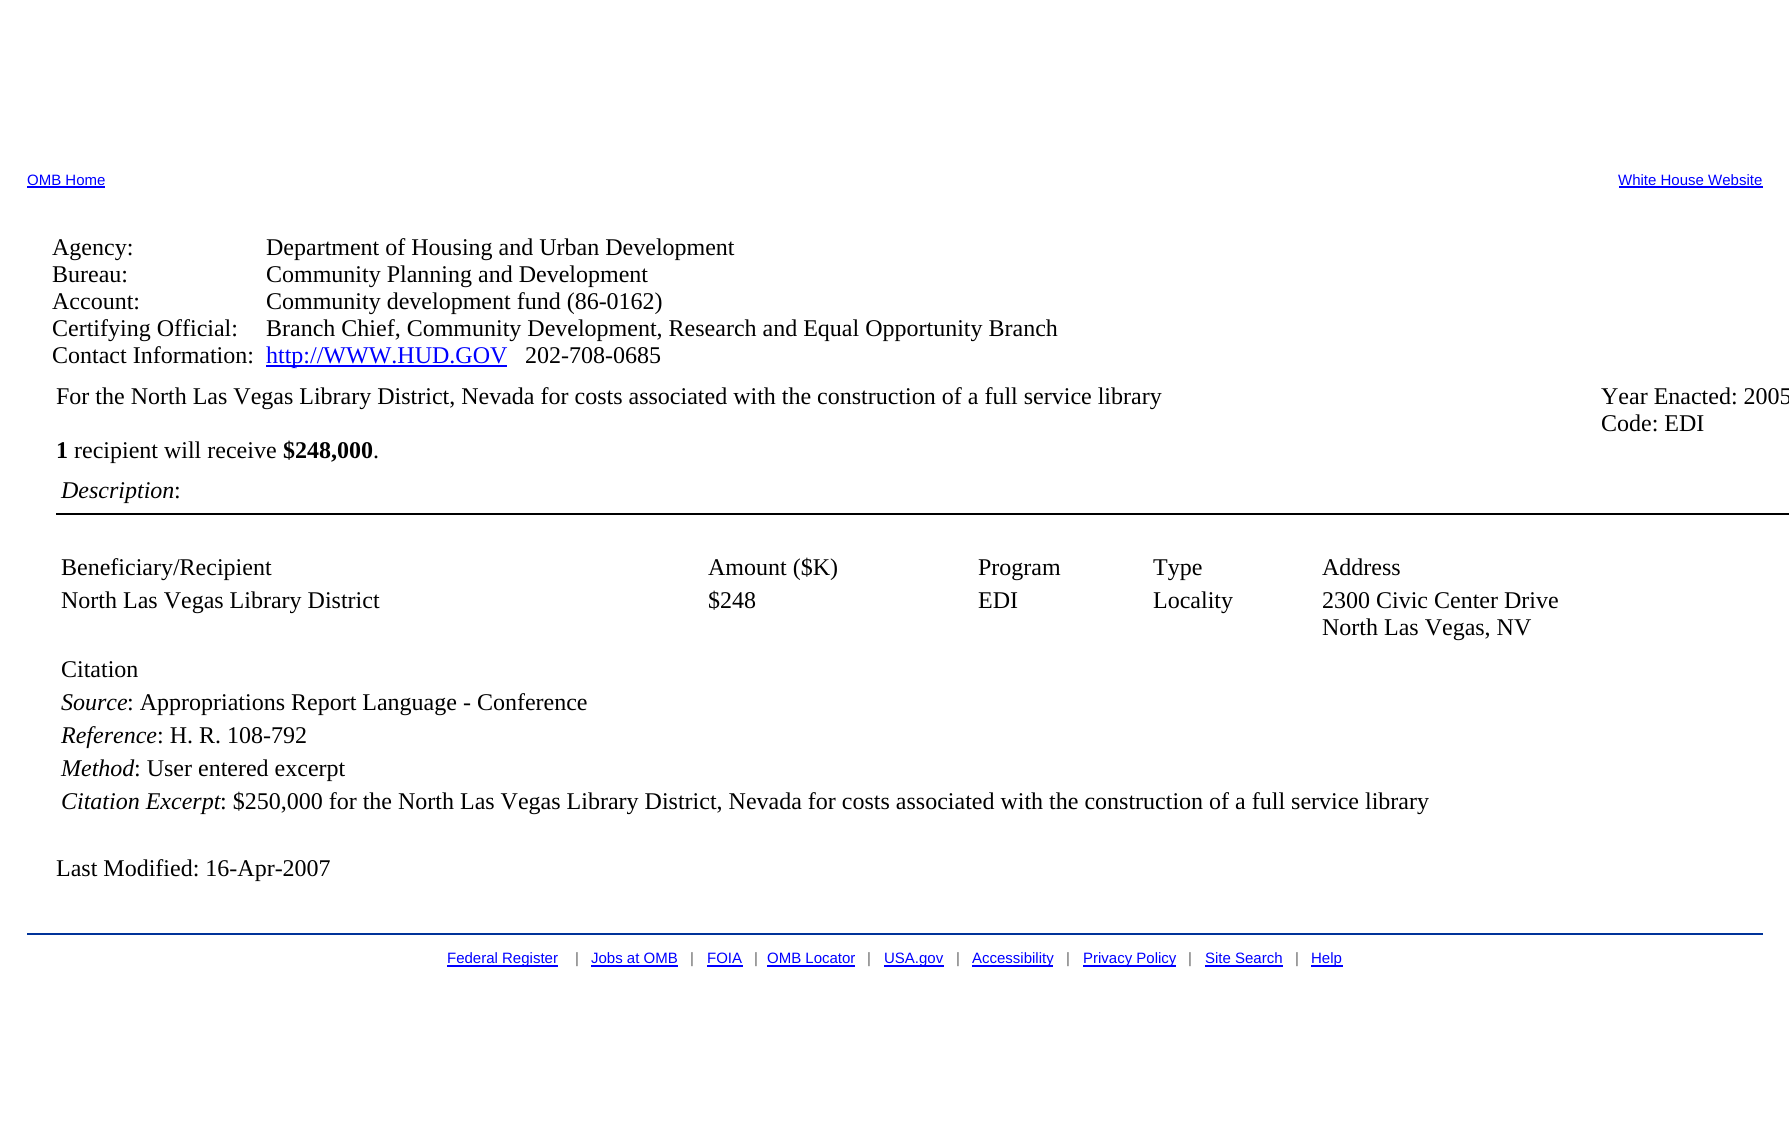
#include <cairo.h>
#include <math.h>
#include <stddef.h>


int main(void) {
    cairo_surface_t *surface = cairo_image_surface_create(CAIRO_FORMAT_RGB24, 1789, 1132);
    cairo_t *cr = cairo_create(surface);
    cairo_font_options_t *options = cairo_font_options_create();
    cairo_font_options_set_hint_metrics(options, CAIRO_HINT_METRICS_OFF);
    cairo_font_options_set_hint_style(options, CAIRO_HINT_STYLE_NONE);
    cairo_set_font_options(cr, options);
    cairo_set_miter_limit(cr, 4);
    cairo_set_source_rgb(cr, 1, 1, 1);
    cairo_paint(cr);
    cairo_select_font_face(cr, "Liberation Sans", CAIRO_FONT_SLANT_NORMAL, CAIRO_FONT_WEIGHT_NORMAL);
    cairo_set_font_size(cr, 15);
    cairo_set_source_rgb(cr, 0, 0, 1);
    cairo_move_to(cr, 27, 185);
    cairo_show_text(cr, "OMB Home");
    cairo_rectangle(cr, 27, 186, 78, 2);
    cairo_fill(cr);
    cairo_move_to(cr, 1618, 185);
    cairo_show_text(cr, "White House Website");
    cairo_rectangle(cr, 1619, 186, 144, 2);
    cairo_fill(cr);
    cairo_select_font_face(cr, "Liberation Serif", CAIRO_FONT_SLANT_NORMAL, CAIRO_FONT_WEIGHT_NORMAL);
    cairo_set_font_size(cr, 24);
    cairo_set_source_rgb(cr, 0, 0, 0);
    cairo_move_to(cr, 52, 255);
    cairo_show_text(cr, "Agency:");
    cairo_move_to(cr, 266, 255);
    cairo_show_text(cr, "Department of Housing and Urban Development");
    cairo_move_to(cr, 52, 282);
    cairo_show_text(cr, "Bureau:");
    cairo_move_to(cr, 266, 282);
    cairo_show_text(cr, "Community Planning and Development");
    cairo_move_to(cr, 52, 309);
    cairo_show_text(cr, "Account:");
    cairo_move_to(cr, 266, 309);
    cairo_show_text(cr, "Community development fund (86-0162)");
    cairo_move_to(cr, 52, 336);
    cairo_show_text(cr, "Certifying Official:");
    cairo_move_to(cr, 266, 336);
    cairo_show_text(cr, "Branch Chief, Community Development, Research and Equal Opportunity Branch");
    cairo_move_to(cr, 52, 363);
    cairo_show_text(cr, "Contact Information:");
    cairo_set_source_rgb(cr, 0, 0, 1);
    cairo_rectangle(cr, 266, 365, 241, 2);
    cairo_fill(cr);
    cairo_move_to(cr, 266, 363);
    cairo_show_text(cr, "http://WWW.HUD.GOV");
    cairo_set_source_rgb(cr, 0, 0, 0);
    cairo_move_to(cr, 525, 363);
    cairo_show_text(cr, "202-708-0685");
    cairo_move_to(cr, 56, 404);
    cairo_show_text(cr, "For the North Las Vegas Library District, Nevada for costs associated with the construction of a full service library");
    cairo_select_font_face(cr, "Liberation Serif", CAIRO_FONT_SLANT_NORMAL, CAIRO_FONT_WEIGHT_BOLD);
    cairo_move_to(cr, 56, 458);
    cairo_show_text(cr, "1");
    cairo_select_font_face(cr, "Liberation Serif", CAIRO_FONT_SLANT_NORMAL, CAIRO_FONT_WEIGHT_NORMAL);
    cairo_move_to(cr, 74, 458);
    cairo_show_text(cr, "recipient will receive");
    cairo_select_font_face(cr, "Liberation Serif", CAIRO_FONT_SLANT_NORMAL, CAIRO_FONT_WEIGHT_BOLD);
    cairo_move_to(cr, 283, 458);
    cairo_show_text(cr, "$248,000");
    cairo_select_font_face(cr, "Liberation Serif", CAIRO_FONT_SLANT_NORMAL, CAIRO_FONT_WEIGHT_NORMAL);
    cairo_move_to(cr, 373, 458);
    cairo_show_text(cr, ".");
    cairo_move_to(cr, 1601, 404);
    cairo_show_text(cr, "Year Enacted: 2005");
    cairo_move_to(cr, 1601, 431);
    cairo_show_text(cr, "Code: EDI");
    cairo_select_font_face(cr, "Liberation Serif", CAIRO_FONT_SLANT_ITALIC, CAIRO_FONT_WEIGHT_NORMAL);
    cairo_move_to(cr, 61, 498);
    cairo_show_text(cr, "Description");
    cairo_select_font_face(cr, "Liberation Serif", CAIRO_FONT_SLANT_NORMAL, CAIRO_FONT_WEIGHT_NORMAL);
    cairo_move_to(cr, 174, 498);
    cairo_show_text(cr, ":");
    cairo_rectangle(cr, 56, 513, 1733, 2);
    cairo_fill(cr);
    cairo_move_to(cr, 61, 575);
    cairo_show_text(cr, "Beneficiary/Recipient");
    cairo_move_to(cr, 708, 575);
    cairo_show_text(cr, "Amount ($K)");
    cairo_move_to(cr, 978, 575);
    cairo_show_text(cr, "Program");
    cairo_move_to(cr, 1153, 575);
    cairo_show_text(cr, "Type");
    cairo_move_to(cr, 1322, 575);
    cairo_show_text(cr, "Address");
    cairo_move_to(cr, 61, 608);
    cairo_show_text(cr, "North Las Vegas Library District");
    cairo_move_to(cr, 708, 608);
    cairo_show_text(cr, "$248");
    cairo_move_to(cr, 978, 608);
    cairo_show_text(cr, "EDI");
    cairo_move_to(cr, 1153, 608);
    cairo_show_text(cr, "Locality");
    cairo_move_to(cr, 1322, 608);
    cairo_show_text(cr, "2300 Civic Center Drive");
    cairo_move_to(cr, 1322, 635);
    cairo_show_text(cr, "North Las Vegas, NV");
    cairo_move_to(cr, 61, 677);
    cairo_show_text(cr, "Citation");
    cairo_select_font_face(cr, "Liberation Serif", CAIRO_FONT_SLANT_ITALIC, CAIRO_FONT_WEIGHT_NORMAL);
    cairo_move_to(cr, 61, 710);
    cairo_show_text(cr, "Source");
    cairo_select_font_face(cr, "Liberation Serif", CAIRO_FONT_SLANT_NORMAL, CAIRO_FONT_WEIGHT_NORMAL);
    cairo_move_to(cr, 127, 710);
    cairo_show_text(cr, ": Appropriations Report Language - Conference");
    cairo_select_font_face(cr, "Liberation Serif", CAIRO_FONT_SLANT_ITALIC, CAIRO_FONT_WEIGHT_NORMAL);
    cairo_move_to(cr, 61, 743);
    cairo_show_text(cr, "Reference");
    cairo_select_font_face(cr, "Liberation Serif", CAIRO_FONT_SLANT_NORMAL, CAIRO_FONT_WEIGHT_NORMAL);
    cairo_move_to(cr, 157, 743);
    cairo_show_text(cr, ": H. R. 108-792");
    cairo_select_font_face(cr, "Liberation Serif", CAIRO_FONT_SLANT_ITALIC, CAIRO_FONT_WEIGHT_NORMAL);
    cairo_move_to(cr, 61, 776);
    cairo_show_text(cr, "Method");
    cairo_select_font_face(cr, "Liberation Serif", CAIRO_FONT_SLANT_NORMAL, CAIRO_FONT_WEIGHT_NORMAL);
    cairo_move_to(cr, 134, 776);
    cairo_show_text(cr, ": User entered excerpt");
    cairo_select_font_face(cr, "Liberation Serif", CAIRO_FONT_SLANT_ITALIC, CAIRO_FONT_WEIGHT_NORMAL);
    cairo_move_to(cr, 61, 809);
    cairo_show_text(cr, "Citation Excerpt");
    cairo_select_font_face(cr, "Liberation Serif", CAIRO_FONT_SLANT_NORMAL, CAIRO_FONT_WEIGHT_NORMAL);
    cairo_move_to(cr, 220, 809);
    cairo_show_text(cr, ": $250,000 for the North Las Vegas Library District, Nevada for costs associated with the construction of a full service library");
    cairo_move_to(cr, 56, 876);
    cairo_show_text(cr, "Last Modified: 16-Apr-2007");
    cairo_set_source_rgb(cr, 0, 0.2, 0.6);
    cairo_rectangle(cr, 27, 933, 1736, 2);
    cairo_fill(cr);
    cairo_set_source_rgb(cr, 0, 0, 1);
    cairo_rectangle(cr, 447, 965, 111, 2);
    cairo_fill(cr);
    cairo_select_font_face(cr, "Liberation Sans", CAIRO_FONT_SLANT_NORMAL, CAIRO_FONT_WEIGHT_NORMAL);
    cairo_set_font_size(cr, 15);
    cairo_move_to(cr, 447, 963);
    cairo_show_text(cr, "Federal Register");
    cairo_set_source_rgb(cr, 0.4, 0.4, 0.4);
    cairo_move_to(cr, 575, 963);
    cairo_show_text(cr, "|");
    cairo_set_source_rgb(cr, 0, 0, 1);
    cairo_move_to(cr, 591, 963);
    cairo_show_text(cr, "Jobs at OMB");
    cairo_rectangle(cr, 591, 965, 87, 2);
    cairo_fill(cr);
    cairo_set_source_rgb(cr, 0.4, 0.4, 0.4);
    cairo_move_to(cr, 690, 963);
    cairo_show_text(cr, "|");
    cairo_set_source_rgb(cr, 0, 0, 1);
    cairo_move_to(cr, 707, 963);
    cairo_show_text(cr, "FOIA");
    cairo_rectangle(cr, 707, 965, 36, 2);
    cairo_fill(cr);
    cairo_set_source_rgb(cr, 0.4, 0.4, 0.4);
    cairo_move_to(cr, 754, 963);
    cairo_show_text(cr, "|");
    cairo_set_source_rgb(cr, 0, 0, 1);
    cairo_move_to(cr, 767, 963);
    cairo_show_text(cr, "OMB Locator");
    cairo_rectangle(cr, 767, 965, 88, 2);
    cairo_fill(cr);
    cairo_set_source_rgb(cr, 0.4, 0.4, 0.4);
    cairo_move_to(cr, 867, 963);
    cairo_show_text(cr, "|");
    cairo_set_source_rgb(cr, 0, 0, 1);
    cairo_rectangle(cr, 884, 965, 60, 2);
    cairo_fill(cr);
    cairo_move_to(cr, 884, 963);
    cairo_show_text(cr, "USA.gov");
    cairo_set_source_rgb(cr, 0.4, 0.4, 0.4);
    cairo_move_to(cr, 956, 963);
    cairo_show_text(cr, "|");
    cairo_set_source_rgb(cr, 0, 0, 1);
    cairo_rectangle(cr, 972, 965, 81, 2);
    cairo_fill(cr);
    cairo_move_to(cr, 972, 963);
    cairo_show_text(cr, "Accessibility");
    cairo_set_source_rgb(cr, 0.4, 0.4, 0.4);
    cairo_move_to(cr, 1066, 963);
    cairo_show_text(cr, "|");
    cairo_set_source_rgb(cr, 0, 0, 1);
    cairo_rectangle(cr, 1083, 965, 93, 2);
    cairo_fill(cr);
    cairo_move_to(cr, 1083, 963);
    cairo_show_text(cr, "Privacy Policy");
    cairo_set_source_rgb(cr, 0.4, 0.4, 0.4);
    cairo_move_to(cr, 1188, 963);
    cairo_show_text(cr, "|");
    cairo_set_source_rgb(cr, 0, 0, 1);
    cairo_move_to(cr, 1205, 963);
    cairo_show_text(cr, "Site Search");
    cairo_rectangle(cr, 1205, 965, 78, 2);
    cairo_fill(cr);
    cairo_set_source_rgb(cr, 0.4, 0.4, 0.4);
    cairo_move_to(cr, 1295, 963);
    cairo_show_text(cr, "|");
    cairo_set_source_rgb(cr, 0, 0, 1);
    cairo_rectangle(cr, 1311, 965, 32, 2);
    cairo_fill(cr);
    cairo_move_to(cr, 1311, 963);
    cairo_show_text(cr, "Help");
    cairo_surface_write_to_png(surface, "page.png");
    cairo_font_options_destroy(options);
    cairo_destroy(cr);
    cairo_surface_destroy(surface);
    return 0;
}
